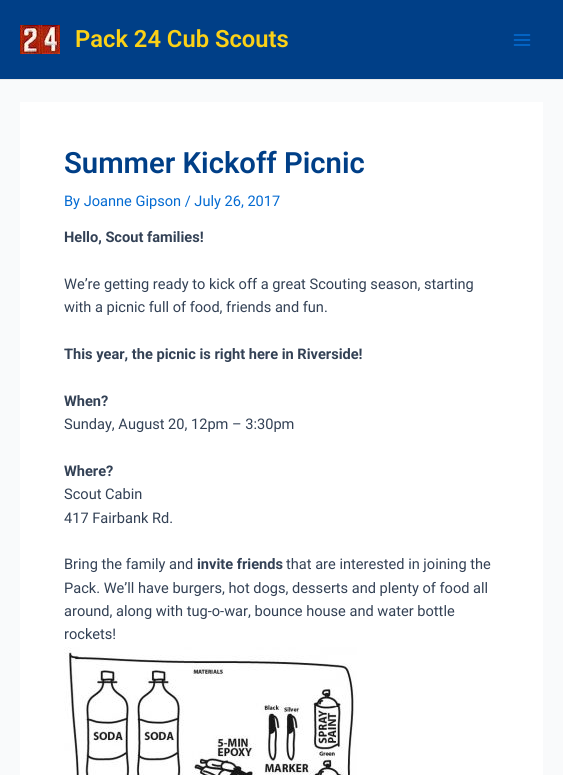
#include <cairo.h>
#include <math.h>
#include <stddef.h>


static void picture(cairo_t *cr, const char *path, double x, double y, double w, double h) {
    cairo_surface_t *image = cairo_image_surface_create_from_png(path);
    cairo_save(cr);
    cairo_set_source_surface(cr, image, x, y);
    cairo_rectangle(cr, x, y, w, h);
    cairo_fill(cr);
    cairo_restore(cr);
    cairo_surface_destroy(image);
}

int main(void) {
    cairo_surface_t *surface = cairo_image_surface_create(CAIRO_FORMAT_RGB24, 563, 775);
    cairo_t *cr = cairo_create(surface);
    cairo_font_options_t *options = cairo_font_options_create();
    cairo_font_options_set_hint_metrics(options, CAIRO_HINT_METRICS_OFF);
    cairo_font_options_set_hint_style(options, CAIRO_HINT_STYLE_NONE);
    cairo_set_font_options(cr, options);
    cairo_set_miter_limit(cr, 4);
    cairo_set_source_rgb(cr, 0.976, 0.98, 0.984);
    cairo_paint(cr);
    cairo_set_source_rgb(cr, 0, 0.247, 0.529);
    cairo_rectangle(cr, 0, 0, 563, 79);
    cairo_fill(cr);
    cairo_set_source_rgb(cr, 0.918, 0.918, 0.918);
    cairo_rectangle(cr, 0, 79, 563, 1);
    cairo_fill(cr);
    picture(cr, "img1.png", 20, 25, 40, 29);
    cairo_select_font_face(cr, "Roboto SemiBold", CAIRO_FONT_SLANT_NORMAL, CAIRO_FONT_WEIGHT_NORMAL);
    cairo_set_font_size(cr, 23.75);
    cairo_set_source_rgb(cr, 0.988, 0.82, 0.086);
    cairo_move_to(cr, 75, 47);
    cairo_show_text(cr, "Pack 24 Cub Scouts");
    picture(cr, "img2.png", 513, 34, 18, 12);
    cairo_set_source_rgb(cr, 1, 1, 1);
    cairo_rectangle(cr, 20, 102, 523, 673);
    cairo_fill(cr);
    cairo_set_font_size(cr, 29.25);
    cairo_set_source_rgb(cr, 0, 0.247, 0.529);
    cairo_move_to(cr, 64, 173);
    cairo_show_text(cr, "Summer Kickoff Picnic");
    cairo_select_font_face(cr, "Roboto", CAIRO_FONT_SLANT_NORMAL, CAIRO_FONT_WEIGHT_NORMAL);
    cairo_set_font_size(cr, 14.6);
    cairo_set_source_rgb(cr, 0.016, 0.42, 0.824);
    cairo_move_to(cr, 64, 206);
    cairo_show_text(cr, "By Joanne Gipson / July 26, 2017");
    cairo_select_font_face(cr, "Roboto", CAIRO_FONT_SLANT_NORMAL, CAIRO_FONT_WEIGHT_BOLD);
    cairo_set_source_rgb(cr, 0.2, 0.255, 0.333);
    cairo_move_to(cr, 64, 242);
    cairo_show_text(cr, "Hello, Scout families!");
    cairo_select_font_face(cr, "Roboto", CAIRO_FONT_SLANT_NORMAL, CAIRO_FONT_WEIGHT_NORMAL);
    cairo_move_to(cr, 64, 289);
    cairo_show_text(cr, "We’re getting ready to kick off a great Scouting season, starting");
    cairo_move_to(cr, 64, 312);
    cairo_show_text(cr, "with a picnic full of food, friends and fun.");
    cairo_select_font_face(cr, "Roboto", CAIRO_FONT_SLANT_NORMAL, CAIRO_FONT_WEIGHT_BOLD);
    cairo_move_to(cr, 64, 359);
    cairo_show_text(cr, "This year, the picnic is right here in Riverside!");
    cairo_move_to(cr, 64, 406);
    cairo_show_text(cr, "When?");
    cairo_select_font_face(cr, "Roboto", CAIRO_FONT_SLANT_NORMAL, CAIRO_FONT_WEIGHT_NORMAL);
    cairo_move_to(cr, 64, 429);
    cairo_show_text(cr, "Sunday, August 20, 12pm – 3:30pm");
    cairo_select_font_face(cr, "Roboto", CAIRO_FONT_SLANT_NORMAL, CAIRO_FONT_WEIGHT_BOLD);
    cairo_move_to(cr, 64, 476);
    cairo_show_text(cr, "Where?");
    cairo_select_font_face(cr, "Roboto", CAIRO_FONT_SLANT_NORMAL, CAIRO_FONT_WEIGHT_NORMAL);
    cairo_move_to(cr, 64, 499);
    cairo_show_text(cr, "Scout Cabin");
    cairo_move_to(cr, 64, 523);
    cairo_show_text(cr, "417 Fairbank Rd.");
    cairo_move_to(cr, 64, 569);
    cairo_show_text(cr, "Bring the family and");
    cairo_select_font_face(cr, "Roboto", CAIRO_FONT_SLANT_NORMAL, CAIRO_FONT_WEIGHT_BOLD);
    cairo_move_to(cr, 197, 569);
    cairo_show_text(cr, "invite friends");
    cairo_select_font_face(cr, "Roboto", CAIRO_FONT_SLANT_NORMAL, CAIRO_FONT_WEIGHT_NORMAL);
    cairo_move_to(cr, 286, 569);
    cairo_show_text(cr, "that are interested in joining the");
    cairo_move_to(cr, 64, 593);
    cairo_show_text(cr, "Pack. We’ll have burgers, hot dogs, desserts and plenty of food all");
    cairo_move_to(cr, 64, 616);
    cairo_show_text(cr, "around, along with tug-o-war, bounce house and water bottle");
    cairo_move_to(cr, 64, 639);
    cairo_show_text(cr, "rockets!");
    picture(cr, "img3.png", 64, 647, 293, 128);
    cairo_surface_write_to_png(surface, "page.png");
    cairo_font_options_destroy(options);
    cairo_destroy(cr);
    cairo_surface_destroy(surface);
    return 0;
}
